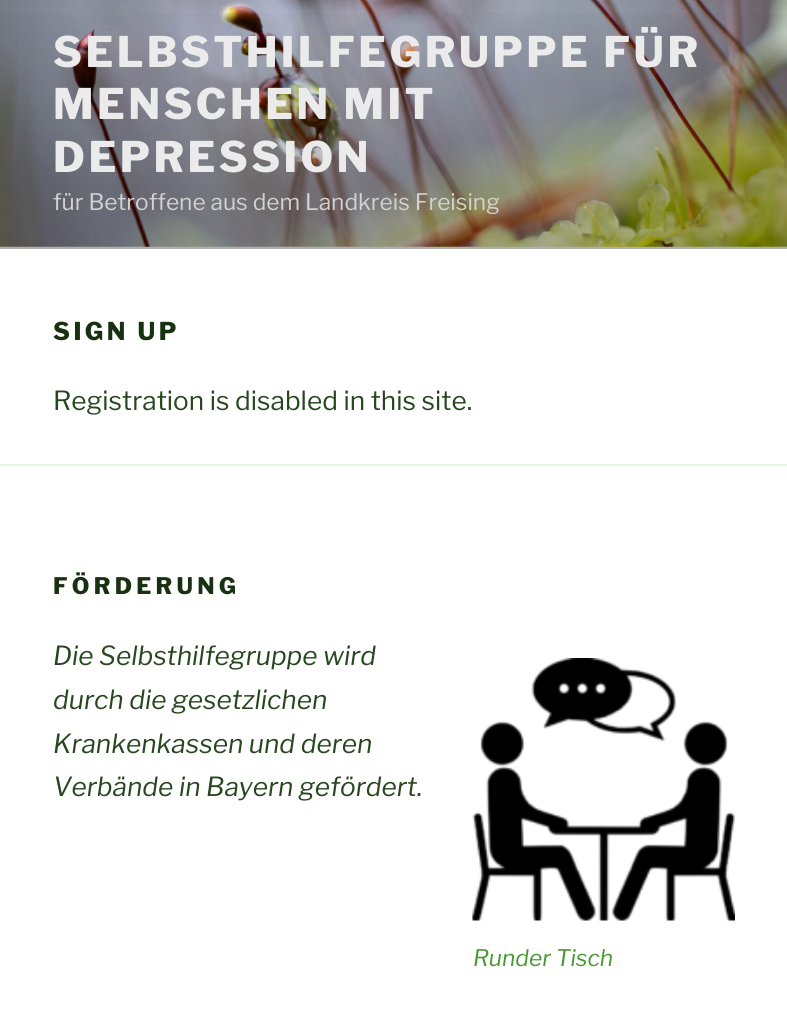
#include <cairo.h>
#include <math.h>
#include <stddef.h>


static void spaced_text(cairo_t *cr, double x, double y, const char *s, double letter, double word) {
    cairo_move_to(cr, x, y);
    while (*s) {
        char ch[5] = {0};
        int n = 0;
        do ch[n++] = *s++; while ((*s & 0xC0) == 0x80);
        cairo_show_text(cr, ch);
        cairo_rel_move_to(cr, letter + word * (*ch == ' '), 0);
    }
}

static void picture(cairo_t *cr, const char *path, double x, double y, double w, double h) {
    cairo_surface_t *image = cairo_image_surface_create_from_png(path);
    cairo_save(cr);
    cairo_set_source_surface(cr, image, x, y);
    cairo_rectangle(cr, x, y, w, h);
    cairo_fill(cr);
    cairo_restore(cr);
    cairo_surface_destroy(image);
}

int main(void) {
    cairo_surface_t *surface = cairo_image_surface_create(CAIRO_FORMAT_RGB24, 787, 1019);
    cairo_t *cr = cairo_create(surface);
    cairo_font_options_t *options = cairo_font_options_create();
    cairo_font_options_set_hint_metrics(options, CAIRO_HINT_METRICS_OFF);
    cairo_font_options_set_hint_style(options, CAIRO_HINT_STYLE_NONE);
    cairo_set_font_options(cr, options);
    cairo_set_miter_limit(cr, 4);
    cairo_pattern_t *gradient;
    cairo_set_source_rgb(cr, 1, 1, 1);
    cairo_paint(cr);
    cairo_set_source_rgb(cr, 0.973, 0.988, 0.969);
    cairo_rectangle(cr, 0, 246, 787, 3);
    cairo_fill(cr);
    picture(cr, "img1.png", 0, 0, 787, 247);
    gradient = cairo_pattern_create_linear(394, 0, 394, 249);
    cairo_pattern_add_color_stop_rgba(gradient, 0, 0, 0, 0, 0);
    cairo_pattern_add_color_stop_rgba(gradient, 0.75, 0, 0, 0, 0.3);
    cairo_pattern_add_color_stop_rgba(gradient, 1, 0, 0, 0, 0.3);
    cairo_set_source(cr, gradient);
    cairo_pattern_destroy(gradient);
    cairo_rectangle(cr, 0, 13, 787, 236);
    cairo_fill(cr);
    cairo_select_font_face(cr, "Libre Franklin Thin", CAIRO_FONT_SLANT_NORMAL, CAIRO_FONT_WEIGHT_NORMAL);
    cairo_set_font_size(cr, 42);
    cairo_set_source_rgb(cr, 0.918, 0.918, 0.918);
    spaced_text(cr, 53, 67, "SELBSTHILFEGRUPPE FÜR", 3.4, 0);
    spaced_text(cr, 53, 119, "MENSCHEN MIT", 3.4, 0);
    spaced_text(cr, 53, 172, "DEPRESSION", 3.4, 0);
    cairo_select_font_face(cr, "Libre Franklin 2 Thin", CAIRO_FONT_SLANT_NORMAL, CAIRO_FONT_WEIGHT_NORMAL);
    cairo_set_font_size(cr, 22.75);
    cairo_set_source_rgb(cr, 0.824, 0.824, 0.82);
    cairo_move_to(cr, 53, 210);
    cairo_show_text(cr, "für Betroffene aus dem Landkreis Freising");
    cairo_select_font_face(cr, "Libre Franklin Thin", CAIRO_FONT_SLANT_NORMAL, CAIRO_FONT_WEIGHT_NORMAL);
    cairo_set_font_size(cr, 24.5);
    cairo_set_source_rgb(cr, 0.094, 0.196, 0.067);
    spaced_text(cr, 53, 340, "SIGN UP", 3.5, 0);
    cairo_select_font_face(cr, "Libre Franklin 2 Thin", CAIRO_FONT_SLANT_NORMAL, CAIRO_FONT_WEIGHT_NORMAL);
    cairo_set_font_size(cr, 26.25);
    cairo_set_source_rgb(cr, 0.153, 0.278, 0.122);
    cairo_move_to(cr, 53, 410);
    cairo_show_text(cr, "Registration is disabled in this site.");
    cairo_set_source_rgb(cr, 0.91, 0.965, 0.894);
    cairo_rectangle(cr, 0, 464, 787, 2);
    cairo_fill(cr);
    cairo_select_font_face(cr, "Libre Franklin Thin", CAIRO_FONT_SLANT_NORMAL, CAIRO_FONT_WEIGHT_NORMAL);
    cairo_set_font_size(cr, 22.75);
    cairo_set_source_rgb(cr, 0.094, 0.196, 0.067);
    spaced_text(cr, 53, 594, "FÖRDERUNG", 4.25, 0);
    cairo_select_font_face(cr, "Libre Franklin Thin", CAIRO_FONT_SLANT_ITALIC, CAIRO_FONT_WEIGHT_NORMAL);
    cairo_set_font_size(cr, 26.25);
    cairo_set_source_rgb(cr, 0.153, 0.278, 0.122);
    cairo_move_to(cr, 53, 665);
    cairo_show_text(cr, "Die Selbsthilfegruppe wird");
    cairo_move_to(cr, 53, 709);
    cairo_show_text(cr, "durch die gesetzlichen");
    cairo_move_to(cr, 53, 753);
    cairo_show_text(cr, "Krankenkassen und deren");
    cairo_move_to(cr, 53, 796);
    cairo_show_text(cr, "Verbände in Bayern gefördert.");
    picture(cr, "img2.png", 472, 658, 263, 263);
    cairo_set_font_size(cr, 22.75);
    cairo_set_source_rgb(cr, 0.286, 0.6, 0.2);
    cairo_move_to(cr, 473, 966);
    cairo_show_text(cr, "Runder Tisch");
    cairo_surface_write_to_png(surface, "page.png");
    cairo_font_options_destroy(options);
    cairo_destroy(cr);
    cairo_surface_destroy(surface);
    return 0;
}
